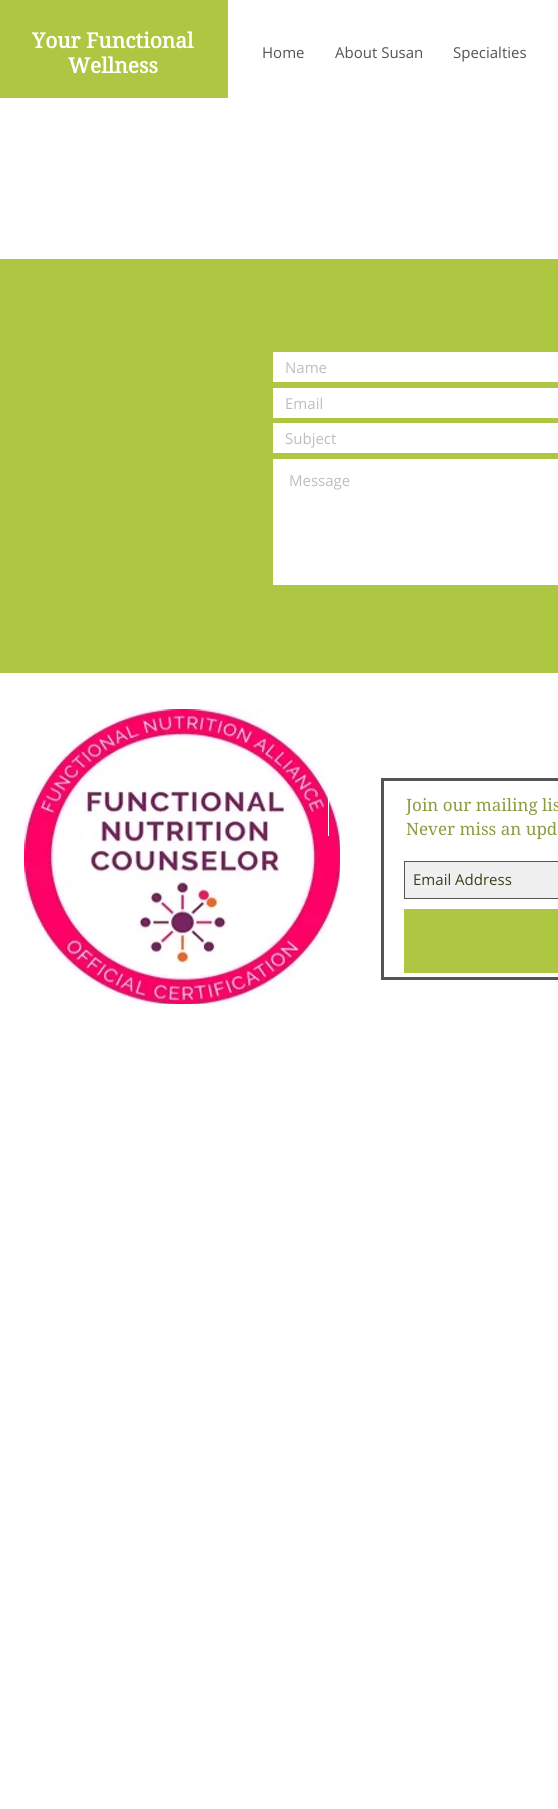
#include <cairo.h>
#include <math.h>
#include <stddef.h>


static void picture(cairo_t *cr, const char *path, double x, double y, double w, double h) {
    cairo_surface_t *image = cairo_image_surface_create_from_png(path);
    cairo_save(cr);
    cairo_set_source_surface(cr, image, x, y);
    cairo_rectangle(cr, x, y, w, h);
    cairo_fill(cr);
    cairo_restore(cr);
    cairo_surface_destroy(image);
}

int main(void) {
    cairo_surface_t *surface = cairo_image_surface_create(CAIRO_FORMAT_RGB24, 558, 1809);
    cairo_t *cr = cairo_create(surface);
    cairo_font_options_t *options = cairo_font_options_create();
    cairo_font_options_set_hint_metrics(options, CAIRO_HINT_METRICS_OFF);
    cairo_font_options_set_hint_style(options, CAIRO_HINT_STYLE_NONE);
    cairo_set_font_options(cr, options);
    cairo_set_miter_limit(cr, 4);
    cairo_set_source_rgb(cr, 1, 1, 1);
    cairo_paint(cr);
    cairo_set_source_rgb(cr, 0.678, 0.78, 0.263);
    cairo_rectangle(cr, 0, 0, 228, 98);
    cairo_fill(cr);
    cairo_select_font_face(cr, "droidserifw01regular", CAIRO_FONT_SLANT_NORMAL, CAIRO_FONT_WEIGHT_BOLD);
    cairo_set_font_size(cr, 21);
    cairo_set_source_rgb(cr, 1, 1, 1);
    cairo_move_to(cr, 32, 48);
    cairo_show_text(cr, "Your Functional");
    cairo_move_to(cr, 68, 73);
    cairo_show_text(cr, "Wellness");
    cairo_select_font_face(cr, "Open Sans", CAIRO_FONT_SLANT_NORMAL, CAIRO_FONT_WEIGHT_NORMAL);
    cairo_set_font_size(cr, 15);
    cairo_set_source_rgb(cr, 0.333, 0.325, 0.325);
    cairo_move_to(cr, 262, 58);
    cairo_show_text(cr, "Home");
    cairo_move_to(cr, 335, 58);
    cairo_show_text(cr, "About Susan");
    cairo_move_to(cr, 453, 58);
    cairo_show_text(cr, "Specialties");
    cairo_set_source_rgb(cr, 0.678, 0.78, 0.263);
    cairo_rectangle(cr, 0, 259, 558, 414);
    cairo_fill(cr);
    cairo_set_source_rgb(cr, 1, 1, 1);
    cairo_rectangle(cr, 273, 352, 285, 30);
    cairo_fill(cr);
    cairo_set_source_rgb(cr, 0.745, 0.745, 0.745);
    cairo_move_to(cr, 285, 373);
    cairo_show_text(cr, "Name");
    cairo_set_source_rgb(cr, 1, 1, 1);
    cairo_rectangle(cr, 273, 388, 285, 30);
    cairo_fill(cr);
    cairo_set_source_rgb(cr, 0.745, 0.745, 0.745);
    cairo_move_to(cr, 285, 409);
    cairo_show_text(cr, "Email");
    cairo_set_source_rgb(cr, 1, 1, 1);
    cairo_rectangle(cr, 273, 423, 285, 30);
    cairo_fill(cr);
    cairo_set_source_rgb(cr, 0.745, 0.745, 0.745);
    cairo_move_to(cr, 285, 444);
    cairo_show_text(cr, "Subject");
    cairo_set_source_rgb(cr, 1, 1, 1);
    cairo_rectangle(cr, 273, 459, 285, 126);
    cairo_fill(cr);
    cairo_set_source_rgb(cr, 0.745, 0.745, 0.745);
    cairo_move_to(cr, 289, 486);
    cairo_show_text(cr, "Message");
    picture(cr, "img1.png", 24, 709, 316, 295);
    cairo_set_source_rgb(cr, 1, 1, 1);
    cairo_rectangle(cr, 328, 784, 1, 52);
    cairo_fill(cr);
    cairo_rectangle(cr, 382.5, 779.5, 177, 199);
    cairo_set_source_rgb(cr, 0.333, 0.325, 0.325);
    cairo_set_line_width(cr, 3);
    cairo_stroke(cr);
    cairo_select_font_face(cr, "droidserifw01regular", CAIRO_FONT_SLANT_NORMAL, CAIRO_FONT_WEIGHT_NORMAL);
    cairo_set_font_size(cr, 17);
    cairo_set_source_rgb(cr, 0.537, 0.612, 0.251);
    cairo_move_to(cr, 406, 811);
    cairo_show_text(cr, "Join our mailing lis");
    cairo_move_to(cr, 406, 835);
    cairo_show_text(cr, "Never miss an upd");
    cairo_set_source_rgb(cr, 0.941, 0.941, 0.941);
    cairo_rectangle(cr, 404.5, 861.5, 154, 37);
    cairo_fill_preserve(cr);
    cairo_set_source_rgb(cr, 0.333, 0.325, 0.325);
    cairo_set_line_width(cr, 1);
    cairo_stroke(cr);
    cairo_select_font_face(cr, "Open Sans", CAIRO_FONT_SLANT_NORMAL, CAIRO_FONT_WEIGHT_NORMAL);
    cairo_set_font_size(cr, 15);
    cairo_set_source_rgb(cr, 0.22, 0.255, 0.098);
    cairo_move_to(cr, 413, 885);
    cairo_show_text(cr, "Email Address");
    cairo_set_source_rgb(cr, 0.678, 0.78, 0.263);
    cairo_rectangle(cr, 404, 909, 154, 64);
    cairo_fill(cr);
    cairo_surface_write_to_png(surface, "page.png");
    cairo_font_options_destroy(options);
    cairo_destroy(cr);
    cairo_surface_destroy(surface);
    return 0;
}
